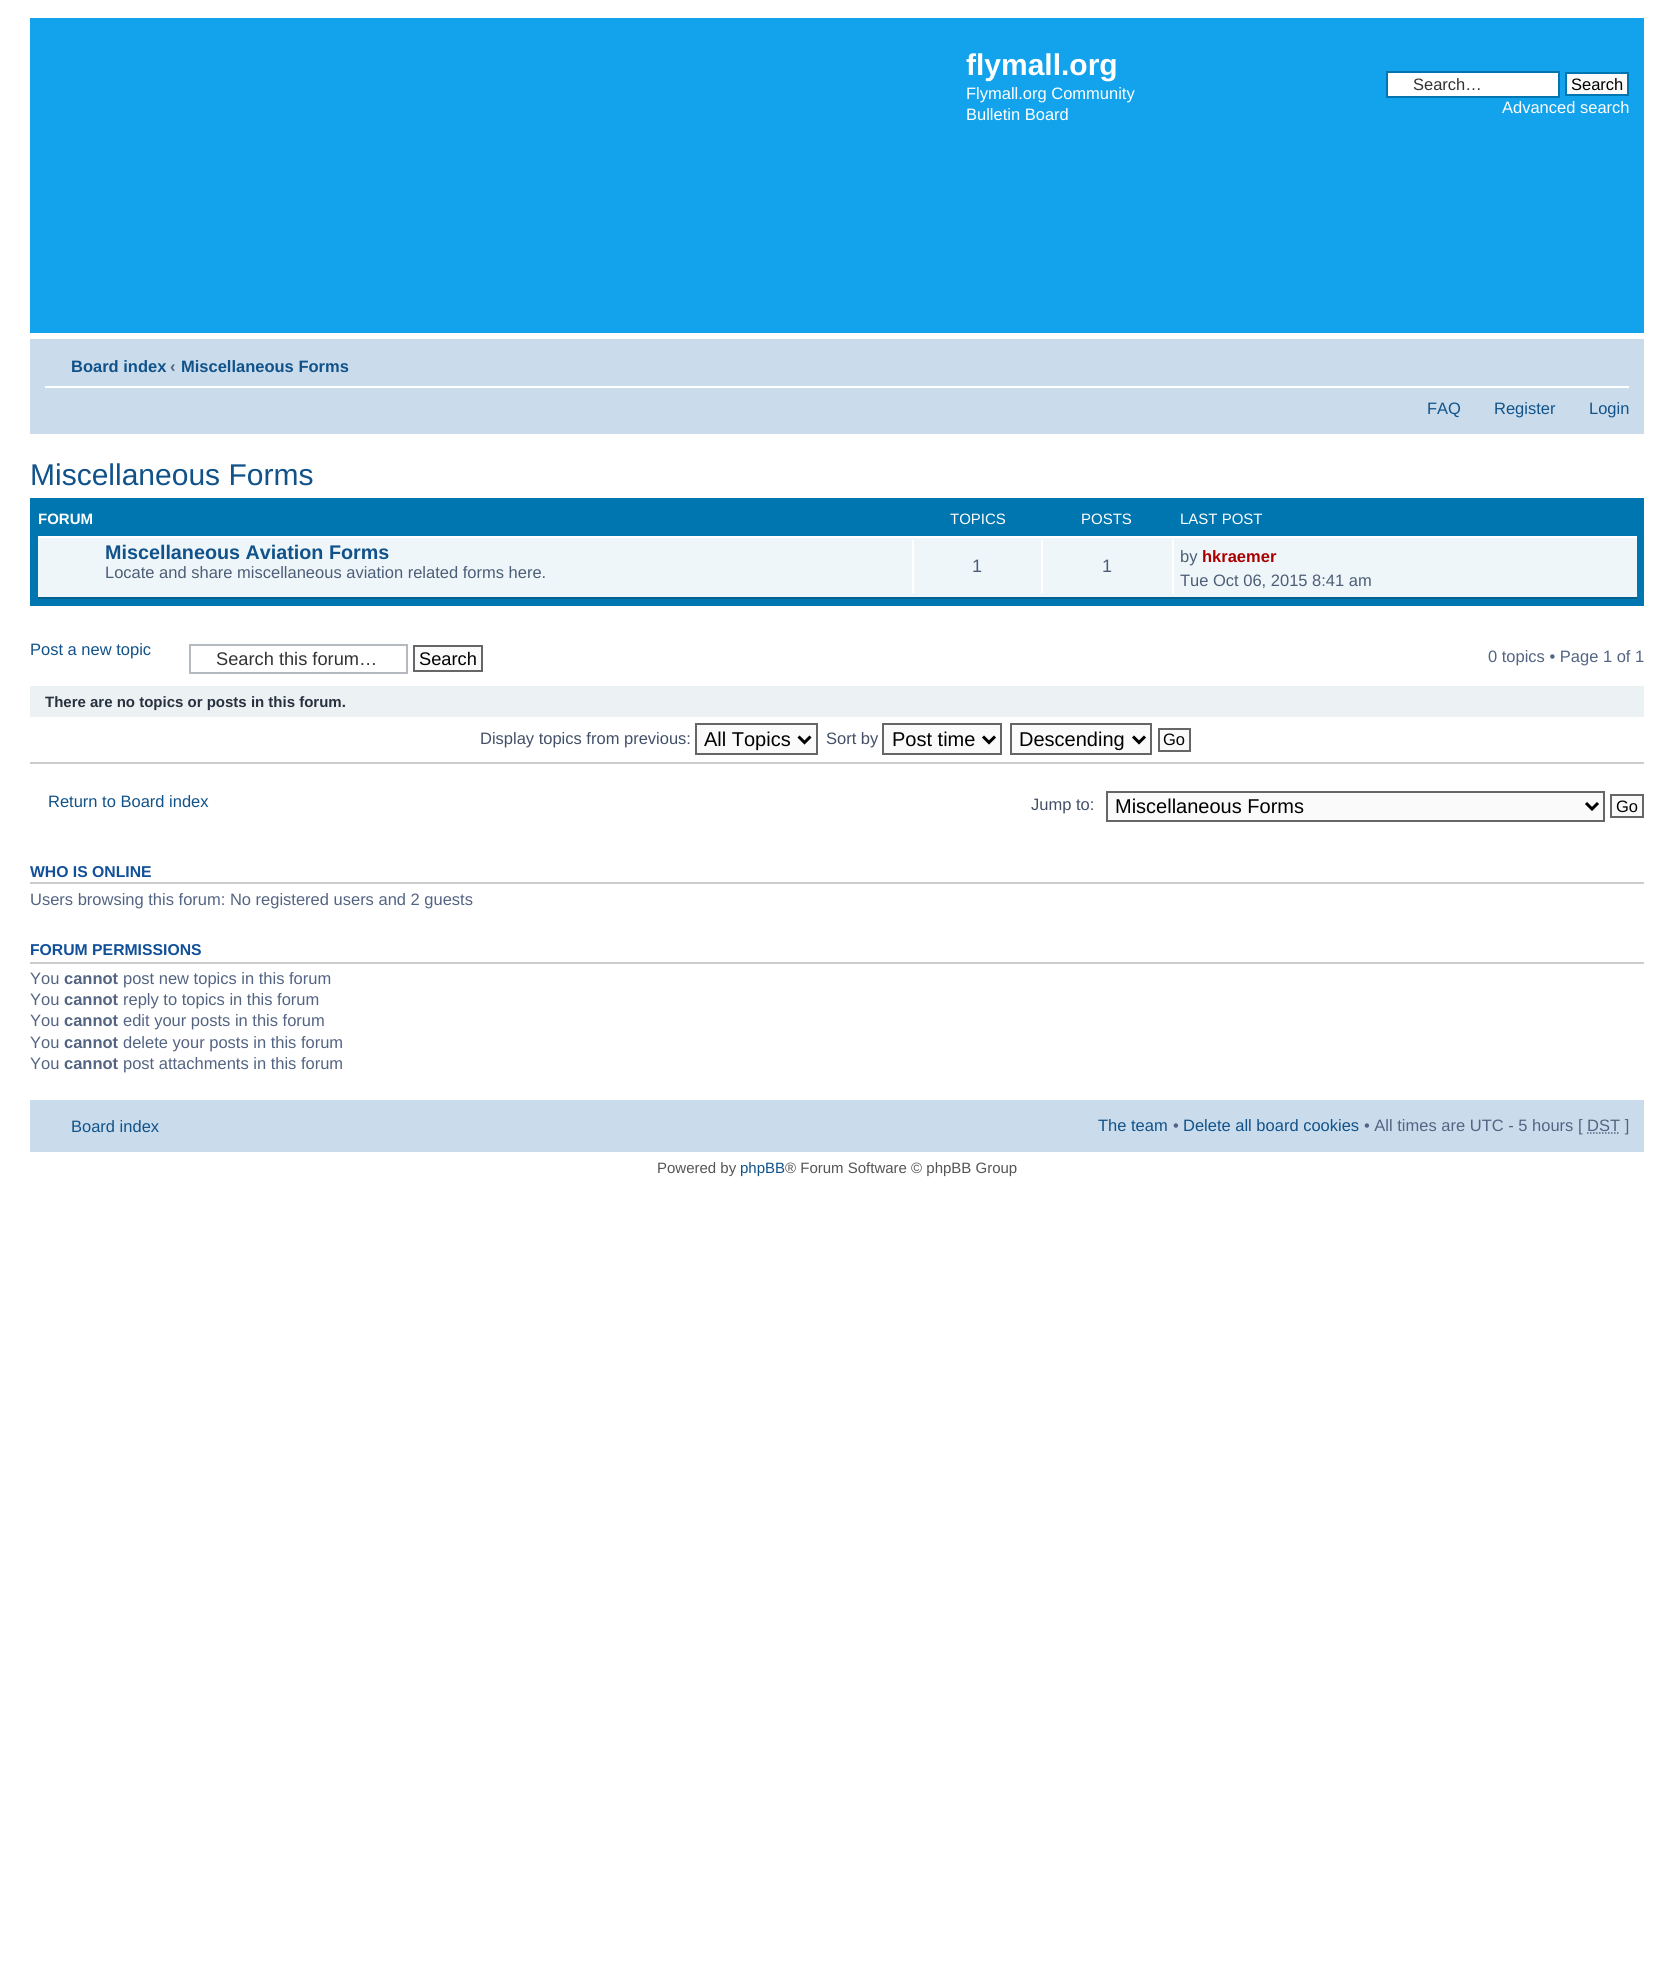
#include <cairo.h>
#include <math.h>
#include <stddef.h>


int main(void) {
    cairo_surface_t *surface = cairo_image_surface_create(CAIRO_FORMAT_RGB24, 1674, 1961);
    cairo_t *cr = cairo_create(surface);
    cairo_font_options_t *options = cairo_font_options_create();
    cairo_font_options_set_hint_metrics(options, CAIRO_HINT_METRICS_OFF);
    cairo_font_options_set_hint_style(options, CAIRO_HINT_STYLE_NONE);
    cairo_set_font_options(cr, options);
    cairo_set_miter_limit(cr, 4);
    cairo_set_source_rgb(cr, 1, 1, 1);
    cairo_paint(cr);
    cairo_set_source_rgb(cr, 0.071, 0.639, 0.922);
    cairo_rectangle(cr, 30, 18, 1614, 315);
    cairo_fill(cr);
    cairo_select_font_face(cr, "Liberation Sans", CAIRO_FONT_SLANT_NORMAL, CAIRO_FONT_WEIGHT_BOLD);
    cairo_set_font_size(cr, 30);
    cairo_set_source_rgb(cr, 1, 1, 1);
    cairo_move_to(cr, 966, 75);
    cairo_show_text(cr, "flymall.org");
    cairo_select_font_face(cr, "Liberation Sans", CAIRO_FONT_SLANT_NORMAL, CAIRO_FONT_WEIGHT_NORMAL);
    cairo_set_font_size(cr, 16.5);
    cairo_move_to(cr, 966, 99);
    cairo_show_text(cr, "Flymall.org Community");
    cairo_move_to(cr, 966, 120);
    cairo_show_text(cr, "Bulletin Board");
    cairo_rectangle(cr, 1387, 72, 172, 25);
    cairo_fill_preserve(cr);
    cairo_set_source_rgb(cr, 0, 0.459, 0.69);
    cairo_stroke(cr);
    cairo_set_source_rgb(cr, 0.2, 0.2, 0.2);
    cairo_move_to(cr, 1413, 90);
    cairo_show_text(cr, "Search…");
    cairo_set_source_rgb(cr, 0.98, 0.98, 0.98);
    cairo_rectangle(cr, 1566, 73, 62, 22);
    cairo_fill_preserve(cr);
    cairo_set_source_rgb(cr, 0, 0.459, 0.69);
    cairo_stroke(cr);
    cairo_set_source_rgb(cr, 0, 0, 0);
    cairo_move_to(cr, 1571, 90);
    cairo_show_text(cr, "Search");
    cairo_set_source_rgb(cr, 1, 1, 1);
    cairo_move_to(cr, 1502, 113);
    cairo_show_text(cr, "Advanced search");
    cairo_set_source_rgb(cr, 0.792, 0.863, 0.922);
    cairo_rectangle(cr, 30, 339, 1614, 95);
    cairo_fill(cr);
    cairo_set_source_rgb(cr, 1, 1, 1);
    cairo_rectangle(cr, 45, 386, 1584, 2);
    cairo_fill(cr);
    cairo_select_font_face(cr, "Liberation Sans", CAIRO_FONT_SLANT_NORMAL, CAIRO_FONT_WEIGHT_BOLD);
    cairo_set_source_rgb(cr, 0.063, 0.322, 0.537);
    cairo_move_to(cr, 71, 372);
    cairo_show_text(cr, "Board index");
    cairo_set_source_rgb(cr, 0.325, 0.392, 0.51);
    cairo_move_to(cr, 170, 372);
    cairo_show_text(cr, "‹");
    cairo_set_source_rgb(cr, 0.063, 0.322, 0.537);
    cairo_move_to(cr, 181, 372);
    cairo_show_text(cr, "Miscellaneous Forms");
    cairo_select_font_face(cr, "Liberation Sans", CAIRO_FONT_SLANT_NORMAL, CAIRO_FONT_WEIGHT_NORMAL);
    cairo_move_to(cr, 1427, 414);
    cairo_show_text(cr, "FAQ");
    cairo_move_to(cr, 1494, 414);
    cairo_show_text(cr, "Register");
    cairo_move_to(cr, 1589, 414);
    cairo_show_text(cr, "Login");
    cairo_set_font_size(cr, 30);
    cairo_move_to(cr, 30, 485);
    cairo_show_text(cr, "Miscellaneous Forms");
    cairo_set_source_rgb(cr, 0, 0.463, 0.694);
    cairo_rectangle(cr, 30, 498, 1614, 108);
    cairo_fill(cr);
    cairo_select_font_face(cr, "Liberation Sans", CAIRO_FONT_SLANT_NORMAL, CAIRO_FONT_WEIGHT_BOLD);
    cairo_set_font_size(cr, 15);
    cairo_set_source_rgb(cr, 1, 1, 1);
    cairo_move_to(cr, 38, 524);
    cairo_show_text(cr, "FORUM");
    cairo_select_font_face(cr, "Liberation Sans", CAIRO_FONT_SLANT_NORMAL, CAIRO_FONT_WEIGHT_NORMAL);
    cairo_move_to(cr, 950, 524);
    cairo_show_text(cr, "TOPICS");
    cairo_move_to(cr, 1081, 524);
    cairo_show_text(cr, "POSTS");
    cairo_move_to(cr, 1180, 524);
    cairo_show_text(cr, "LAST POST");
    cairo_set_source_rgb(cr, 0.933, 0.961, 0.976);
    cairo_rectangle(cr, 38, 538, 1599, 59);
    cairo_fill(cr);
    cairo_set_source_rgb(cr, 1, 1, 1);
    cairo_rectangle(cr, 38, 536, 1599, 2);
    cairo_fill(cr);
    cairo_set_source_rgb(cr, 0, 0.376, 0.561);
    cairo_rectangle(cr, 38, 597, 1599, 2);
    cairo_fill(cr);
    cairo_select_font_face(cr, "Liberation Sans", CAIRO_FONT_SLANT_NORMAL, CAIRO_FONT_WEIGHT_BOLD);
    cairo_set_font_size(cr, 19.75);
    cairo_set_source_rgb(cr, 0.063, 0.322, 0.537);
    cairo_move_to(cr, 105, 559);
    cairo_show_text(cr, "Miscellaneous Aviation Forms");
    cairo_select_font_face(cr, "Liberation Sans", CAIRO_FONT_SLANT_NORMAL, CAIRO_FONT_WEIGHT_NORMAL);
    cairo_set_font_size(cr, 16.5);
    cairo_set_source_rgb(cr, 0.298, 0.365, 0.467);
    cairo_move_to(cr, 105, 578);
    cairo_show_text(cr, "Locate and share miscellaneous aviation related forms here.");
    cairo_set_source_rgb(cr, 1, 1, 1);
    cairo_rectangle(cr, 912, 540, 2, 53);
    cairo_fill(cr);
    cairo_set_font_size(cr, 18);
    cairo_set_source_rgb(cr, 0.298, 0.365, 0.467);
    cairo_move_to(cr, 972, 572);
    cairo_show_text(cr, "1");
    cairo_set_source_rgb(cr, 1, 1, 1);
    cairo_rectangle(cr, 1041, 540, 2, 53);
    cairo_fill(cr);
    cairo_set_source_rgb(cr, 0.298, 0.365, 0.467);
    cairo_move_to(cr, 1102, 572);
    cairo_show_text(cr, "1");
    cairo_set_source_rgb(cr, 1, 1, 1);
    cairo_rectangle(cr, 1172, 540, 2, 54);
    cairo_fill(cr);
    cairo_set_font_size(cr, 16.5);
    cairo_set_source_rgb(cr, 0.298, 0.365, 0.467);
    cairo_move_to(cr, 1180, 562);
    cairo_show_text(cr, "by");
    cairo_select_font_face(cr, "Liberation Sans", CAIRO_FONT_SLANT_NORMAL, CAIRO_FONT_WEIGHT_BOLD);
    cairo_set_source_rgb(cr, 0.667, 0, 0);
    cairo_move_to(cr, 1202, 562);
    cairo_show_text(cr, "hkraemer");
    cairo_select_font_face(cr, "Liberation Sans", CAIRO_FONT_SLANT_NORMAL, CAIRO_FONT_WEIGHT_NORMAL);
    cairo_set_source_rgb(cr, 0.298, 0.365, 0.467);
    cairo_move_to(cr, 1180, 586);
    cairo_show_text(cr, "Tue Oct 06, 2015 8:41 am");
    cairo_set_source_rgb(cr, 0.063, 0.322, 0.537);
    cairo_move_to(cr, 30, 655);
    cairo_show_text(cr, "Post a new topic");
    cairo_rectangle(cr, 190, 645, 217, 28);
    cairo_set_source_rgb(cr, 0.706, 0.729, 0.753);
    cairo_stroke(cr);
    cairo_set_font_size(cr, 18.25);
    cairo_set_source_rgb(cr, 0.2, 0.2, 0.2);
    cairo_move_to(cr, 216, 665);
    cairo_show_text(cr, "Search this forum…");
    cairo_set_source_rgb(cr, 0.98, 0.98, 0.98);
    cairo_rectangle(cr, 414, 646, 68, 25);
    cairo_fill_preserve(cr);
    cairo_set_source_rgb(cr, 0.4, 0.4, 0.4);
    cairo_stroke(cr);
    cairo_set_source_rgb(cr, 0, 0, 0);
    cairo_move_to(cr, 419, 665);
    cairo_show_text(cr, "Search");
    cairo_set_font_size(cr, 16.5);
    cairo_set_source_rgb(cr, 0.325, 0.392, 0.51);
    cairo_move_to(cr, 1488, 662);
    cairo_show_text(cr, "0 topics • Page 1 of 1");
    cairo_set_source_rgb(cr, 0.925, 0.945, 0.953);
    cairo_rectangle(cr, 30, 686, 1614, 31);
    cairo_fill(cr);
    cairo_select_font_face(cr, "Liberation Sans", CAIRO_FONT_SLANT_NORMAL, CAIRO_FONT_WEIGHT_BOLD);
    cairo_set_font_size(cr, 15);
    cairo_set_source_rgb(cr, 0.157, 0.192, 0.247);
    cairo_move_to(cr, 45, 707);
    cairo_show_text(cr, "There are no topics or posts in this forum.");
    cairo_select_font_face(cr, "Liberation Sans", CAIRO_FONT_SLANT_NORMAL, CAIRO_FONT_WEIGHT_NORMAL);
    cairo_set_font_size(cr, 16.5);
    cairo_set_source_rgb(cr, 0.259, 0.314, 0.404);
    cairo_move_to(cr, 480, 744);
    cairo_show_text(cr, "Display topics from previous:");
    cairo_set_source_rgb(cr, 0.98, 0.98, 0.98);
    cairo_rectangle(cr, 696, 724, 121, 30);
    cairo_fill_preserve(cr);
    cairo_set_source_rgb(cr, 0.4, 0.4, 0.4);
    cairo_stroke(cr);
    cairo_new_path(cr);
    cairo_move_to(cr, 798.5, 736.5);
    cairo_line_to(cr, 804.5, 742.5);
    cairo_line_to(cr, 810.5, 736.5);
    cairo_set_source_rgb(cr, 0, 0, 0);
    cairo_set_line_width(cr, 3);
    cairo_stroke(cr);
    cairo_set_font_size(cr, 20);
    cairo_move_to(cr, 704, 746);
    cairo_show_text(cr, "All Topics");
    cairo_set_font_size(cr, 16.5);
    cairo_set_source_rgb(cr, 0.259, 0.314, 0.404);
    cairo_move_to(cr, 826, 744);
    cairo_show_text(cr, "Sort by");
    cairo_set_source_rgb(cr, 0.98, 0.98, 0.98);
    cairo_rectangle(cr, 883, 724, 118, 30);
    cairo_fill_preserve(cr);
    cairo_set_source_rgb(cr, 0.4, 0.4, 0.4);
    cairo_set_line_width(cr, 2);
    cairo_stroke(cr);
    cairo_new_path(cr);
    cairo_move_to(cr, 983, 736.5);
    cairo_line_to(cr, 989, 742.5);
    cairo_line_to(cr, 995, 736.5);
    cairo_set_source_rgb(cr, 0, 0, 0);
    cairo_set_line_width(cr, 3);
    cairo_stroke(cr);
    cairo_set_font_size(cr, 20);
    cairo_move_to(cr, 892, 746);
    cairo_show_text(cr, "Post time");
    cairo_set_source_rgb(cr, 0.98, 0.98, 0.98);
    cairo_rectangle(cr, 1011, 724, 140, 30);
    cairo_fill_preserve(cr);
    cairo_set_source_rgb(cr, 0.4, 0.4, 0.4);
    cairo_set_line_width(cr, 2);
    cairo_stroke(cr);
    cairo_new_path(cr);
    cairo_move_to(cr, 1133, 736.5);
    cairo_line_to(cr, 1139, 742.5);
    cairo_line_to(cr, 1145, 736.5);
    cairo_set_source_rgb(cr, 0, 0, 0);
    cairo_set_line_width(cr, 3);
    cairo_stroke(cr);
    cairo_move_to(cr, 1019, 746);
    cairo_show_text(cr, "Descending");
    cairo_set_source_rgb(cr, 0.98, 0.98, 0.98);
    cairo_rectangle(cr, 1159, 729, 31, 22);
    cairo_fill_preserve(cr);
    cairo_set_source_rgb(cr, 0.4, 0.4, 0.4);
    cairo_set_line_width(cr, 2);
    cairo_stroke(cr);
    cairo_set_font_size(cr, 16.5);
    cairo_set_source_rgb(cr, 0, 0, 0);
    cairo_move_to(cr, 1163, 745);
    cairo_show_text(cr, "Go");
    cairo_set_source_rgb(cr, 0.8, 0.8, 0.8);
    cairo_rectangle(cr, 30, 762, 1614, 2);
    cairo_fill(cr);
    cairo_set_source_rgb(cr, 0.063, 0.322, 0.537);
    cairo_move_to(cr, 48, 807);
    cairo_show_text(cr, "Return to Board index");
    cairo_set_source_rgb(cr, 0.259, 0.314, 0.404);
    cairo_move_to(cr, 1031, 810);
    cairo_show_text(cr, "Jump to:");
    cairo_set_source_rgb(cr, 0.98, 0.98, 0.98);
    cairo_rectangle(cr, 1107, 792, 497, 29);
    cairo_fill_preserve(cr);
    cairo_set_source_rgb(cr, 0.4, 0.4, 0.4);
    cairo_stroke(cr);
    cairo_new_path(cr);
    cairo_move_to(cr, 1586, 803);
    cairo_line_to(cr, 1592, 809);
    cairo_line_to(cr, 1598, 803);
    cairo_set_source_rgb(cr, 0, 0, 0);
    cairo_set_line_width(cr, 3);
    cairo_stroke(cr);
    cairo_set_font_size(cr, 20);
    cairo_move_to(cr, 1115, 813);
    cairo_show_text(cr, "Miscellaneous Forms");
    cairo_set_source_rgb(cr, 0.98, 0.98, 0.98);
    cairo_rectangle(cr, 1611, 795, 32, 22);
    cairo_fill_preserve(cr);
    cairo_set_source_rgb(cr, 0.4, 0.4, 0.4);
    cairo_set_line_width(cr, 2);
    cairo_stroke(cr);
    cairo_set_font_size(cr, 16.5);
    cairo_set_source_rgb(cr, 0, 0, 0);
    cairo_move_to(cr, 1616, 812);
    cairo_show_text(cr, "Go");
    cairo_set_source_rgb(cr, 0.8, 0.8, 0.8);
    cairo_rectangle(cr, 30, 882, 1614, 2);
    cairo_fill(cr);
    cairo_select_font_face(cr, "Liberation Sans", CAIRO_FONT_SLANT_NORMAL, CAIRO_FONT_WEIGHT_BOLD);
    cairo_set_font_size(cr, 15.75);
    cairo_set_source_rgb(cr, 0.067, 0.314, 0.596);
    cairo_move_to(cr, 30, 877);
    cairo_show_text(cr, "WHO IS ONLINE");
    cairo_select_font_face(cr, "Liberation Sans", CAIRO_FONT_SLANT_NORMAL, CAIRO_FONT_WEIGHT_NORMAL);
    cairo_set_font_size(cr, 16.5);
    cairo_set_source_rgb(cr, 0.325, 0.392, 0.51);
    cairo_move_to(cr, 30, 905);
    cairo_show_text(cr, "Users browsing this forum: No registered users and 2 guests");
    cairo_set_source_rgb(cr, 0.8, 0.8, 0.8);
    cairo_rectangle(cr, 30, 962, 1614, 2);
    cairo_fill(cr);
    cairo_select_font_face(cr, "Liberation Sans", CAIRO_FONT_SLANT_NORMAL, CAIRO_FONT_WEIGHT_BOLD);
    cairo_set_font_size(cr, 15.75);
    cairo_set_source_rgb(cr, 0.067, 0.314, 0.596);
    cairo_move_to(cr, 30, 955);
    cairo_show_text(cr, "FORUM PERMISSIONS");
    cairo_select_font_face(cr, "Liberation Sans", CAIRO_FONT_SLANT_NORMAL, CAIRO_FONT_WEIGHT_NORMAL);
    cairo_set_font_size(cr, 16.5);
    cairo_set_source_rgb(cr, 0.325, 0.392, 0.51);
    cairo_move_to(cr, 30, 984);
    cairo_show_text(cr, "You");
    cairo_select_font_face(cr, "Liberation Sans", CAIRO_FONT_SLANT_NORMAL, CAIRO_FONT_WEIGHT_BOLD);
    cairo_move_to(cr, 64, 984);
    cairo_show_text(cr, "cannot");
    cairo_select_font_face(cr, "Liberation Sans", CAIRO_FONT_SLANT_NORMAL, CAIRO_FONT_WEIGHT_NORMAL);
    cairo_move_to(cr, 123, 984);
    cairo_show_text(cr, "post new topics in this forum");
    cairo_move_to(cr, 30, 1005);
    cairo_show_text(cr, "You");
    cairo_select_font_face(cr, "Liberation Sans", CAIRO_FONT_SLANT_NORMAL, CAIRO_FONT_WEIGHT_BOLD);
    cairo_move_to(cr, 64, 1005);
    cairo_show_text(cr, "cannot");
    cairo_select_font_face(cr, "Liberation Sans", CAIRO_FONT_SLANT_NORMAL, CAIRO_FONT_WEIGHT_NORMAL);
    cairo_move_to(cr, 123, 1005);
    cairo_show_text(cr, "reply to topics in this forum");
    cairo_move_to(cr, 30, 1026);
    cairo_show_text(cr, "You");
    cairo_select_font_face(cr, "Liberation Sans", CAIRO_FONT_SLANT_NORMAL, CAIRO_FONT_WEIGHT_BOLD);
    cairo_move_to(cr, 64, 1026);
    cairo_show_text(cr, "cannot");
    cairo_select_font_face(cr, "Liberation Sans", CAIRO_FONT_SLANT_NORMAL, CAIRO_FONT_WEIGHT_NORMAL);
    cairo_move_to(cr, 123, 1026);
    cairo_show_text(cr, "edit your posts in this forum");
    cairo_move_to(cr, 30, 1048);
    cairo_show_text(cr, "You");
    cairo_select_font_face(cr, "Liberation Sans", CAIRO_FONT_SLANT_NORMAL, CAIRO_FONT_WEIGHT_BOLD);
    cairo_move_to(cr, 64, 1048);
    cairo_show_text(cr, "cannot");
    cairo_select_font_face(cr, "Liberation Sans", CAIRO_FONT_SLANT_NORMAL, CAIRO_FONT_WEIGHT_NORMAL);
    cairo_move_to(cr, 123, 1048);
    cairo_show_text(cr, "delete your posts in this forum");
    cairo_move_to(cr, 30, 1069);
    cairo_show_text(cr, "You");
    cairo_select_font_face(cr, "Liberation Sans", CAIRO_FONT_SLANT_NORMAL, CAIRO_FONT_WEIGHT_BOLD);
    cairo_move_to(cr, 64, 1069);
    cairo_show_text(cr, "cannot");
    cairo_select_font_face(cr, "Liberation Sans", CAIRO_FONT_SLANT_NORMAL, CAIRO_FONT_WEIGHT_NORMAL);
    cairo_move_to(cr, 123, 1069);
    cairo_show_text(cr, "post attachments in this forum");
    cairo_set_source_rgb(cr, 0.792, 0.863, 0.922);
    cairo_rectangle(cr, 30, 1100, 1614, 52);
    cairo_fill(cr);
    cairo_set_source_rgb(cr, 0.063, 0.322, 0.537);
    cairo_move_to(cr, 71, 1132);
    cairo_show_text(cr, "Board index");
    cairo_move_to(cr, 1098, 1131);
    cairo_show_text(cr, "The team");
    cairo_set_source_rgb(cr, 0.325, 0.392, 0.51);
    cairo_move_to(cr, 1173, 1131);
    cairo_show_text(cr, "•");
    cairo_set_source_rgb(cr, 0.063, 0.322, 0.537);
    cairo_move_to(cr, 1183, 1131);
    cairo_show_text(cr, "Delete all board cookies");
    cairo_set_source_rgb(cr, 0.325, 0.392, 0.51);
    cairo_move_to(cr, 1364, 1131);
    cairo_show_text(cr, "• All times are UTC - 5 hours [ DST ]");
    cairo_new_path(cr);
    cairo_move_to(cr, 1587, 1133);
    cairo_line_to(cr, 1620, 1133);
    cairo_set_line_width(cr, 1.5);
    cairo_set_dash(cr, (double[]){1.5, 1.5}, 2, 0);
    cairo_stroke(cr);
    cairo_set_font_size(cr, 15);
    cairo_set_source_rgb(cr, 0.333, 0.333, 0.333);
    cairo_move_to(cr, 657, 1173);
    cairo_show_text(cr, "Powered by");
    cairo_set_source_rgb(cr, 0.063, 0.322, 0.537);
    cairo_move_to(cr, 740, 1173);
    cairo_show_text(cr, "phpBB");
    cairo_set_source_rgb(cr, 0.333, 0.333, 0.333);
    cairo_move_to(cr, 785, 1173);
    cairo_show_text(cr, "® Forum Software © phpBB Group");
    cairo_surface_write_to_png(surface, "page.png");
    cairo_font_options_destroy(options);
    cairo_destroy(cr);
    cairo_surface_destroy(surface);
    return 0;
}
